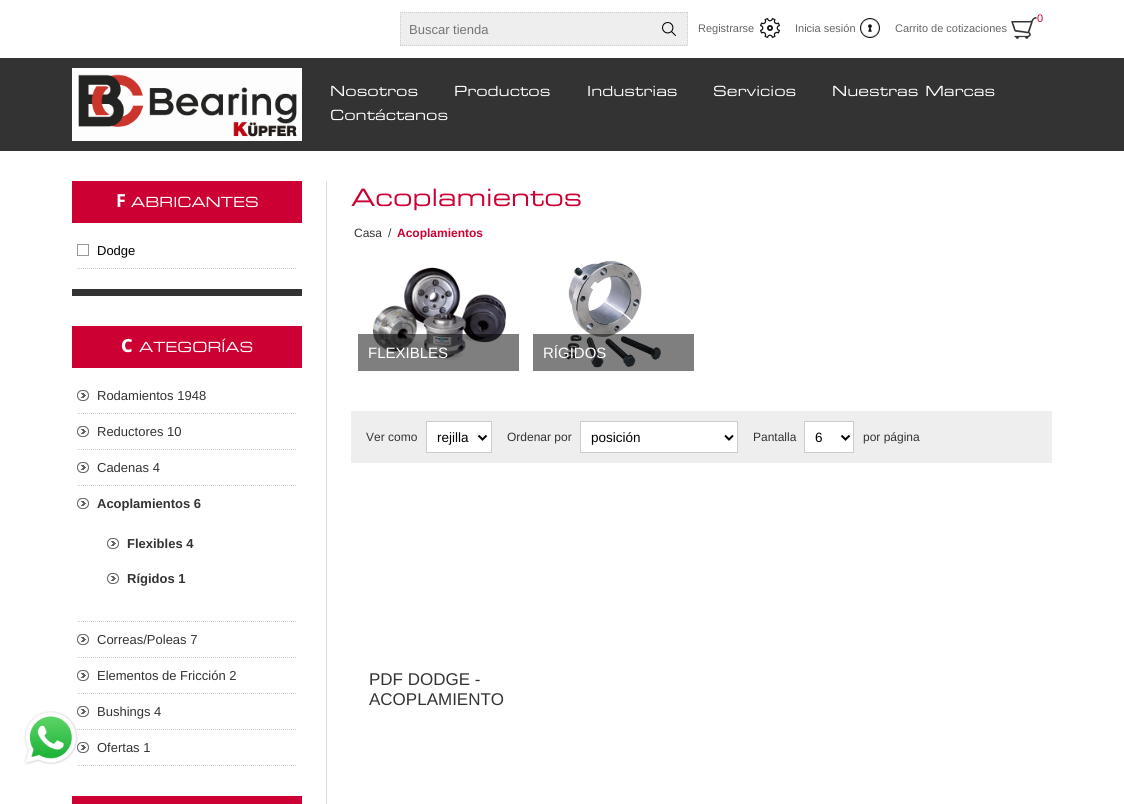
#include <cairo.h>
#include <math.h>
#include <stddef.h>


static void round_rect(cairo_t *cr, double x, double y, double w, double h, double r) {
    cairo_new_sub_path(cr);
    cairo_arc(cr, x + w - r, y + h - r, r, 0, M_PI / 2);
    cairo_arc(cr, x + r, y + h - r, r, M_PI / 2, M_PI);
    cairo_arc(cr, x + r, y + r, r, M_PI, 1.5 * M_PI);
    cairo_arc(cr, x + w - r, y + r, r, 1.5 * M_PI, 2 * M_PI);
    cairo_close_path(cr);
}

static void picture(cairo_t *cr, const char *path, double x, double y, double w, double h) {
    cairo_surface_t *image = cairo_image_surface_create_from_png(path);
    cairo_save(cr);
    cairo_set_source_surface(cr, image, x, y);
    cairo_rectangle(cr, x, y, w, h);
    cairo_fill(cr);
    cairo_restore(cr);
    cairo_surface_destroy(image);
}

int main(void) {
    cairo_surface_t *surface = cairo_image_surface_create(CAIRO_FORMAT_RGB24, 1124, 804);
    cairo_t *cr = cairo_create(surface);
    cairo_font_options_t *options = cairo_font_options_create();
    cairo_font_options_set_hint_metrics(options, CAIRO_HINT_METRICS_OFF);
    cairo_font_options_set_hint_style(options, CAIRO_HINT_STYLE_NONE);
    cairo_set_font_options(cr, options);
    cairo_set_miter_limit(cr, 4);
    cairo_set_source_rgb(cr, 1, 1, 1);
    cairo_paint(cr);
    cairo_new_path(cr);
    cairo_move_to(cr, 77, 729.5);
    cairo_line_to(cr, 297, 729.5);
    cairo_set_source_rgb(cr, 0.8, 0.8, 0.8);
    cairo_set_line_width(cr, 1);
    cairo_set_dash(cr, (double[]){1, 1}, 2, 0);
    cairo_stroke(cr);
    cairo_set_source_rgb(cr, 0.4, 0.4, 0.4);
    round_rect(cr, 77, 706, 12, 11, 5.5);
    cairo_fill(cr);
    picture(cr, "img7.png", 77, 706, 12, 11);
    round_rect(cr, 77.5, 706.5, 11, 10, 5);
    cairo_set_dash(cr, NULL, 0, 0);
    cairo_stroke(cr);
    round_rect(cr, 77, 742, 12, 11, 5.5);
    cairo_fill(cr);
    picture(cr, "img7.png", 77, 742, 12, 11);
    round_rect(cr, 77.5, 742.5, 11, 10, 5);
    cairo_stroke(cr);
    picture(cr, "img1.png", 24, 711, 54, 54);
    cairo_set_source_rgb(cr, 0.933, 0.933, 0.933);
    cairo_rectangle(cr, 400, 12, 288, 34);
    cairo_fill(cr);
    cairo_new_path(cr);
    cairo_move_to(cr, 400, 12.5);
    cairo_line_to(cr, 688, 12.5);
    cairo_set_source_rgb(cr, 0.8, 0.8, 0.8);
    cairo_set_dash(cr, (double[]){1, 1}, 2, 0);
    cairo_stroke(cr);
    cairo_new_path(cr);
    cairo_move_to(cr, 687.5, 12);
    cairo_line_to(cr, 687.5, 46);
    cairo_stroke(cr);
    cairo_new_path(cr);
    cairo_move_to(cr, 400, 45.5);
    cairo_line_to(cr, 688, 45.5);
    cairo_stroke(cr);
    cairo_new_path(cr);
    cairo_move_to(cr, 400.5, 12);
    cairo_line_to(cr, 400.5, 46);
    cairo_stroke(cr);
    cairo_select_font_face(cr, "Liberation Sans", CAIRO_FONT_SLANT_NORMAL, CAIRO_FONT_WEIGHT_NORMAL);
    cairo_set_font_size(cr, 13);
    cairo_set_source_rgb(cr, 0.459, 0.459, 0.459);
    cairo_move_to(cr, 409, 34);
    cairo_show_text(cr, "Buscar tienda");
    picture(cr, "img2.png", 662, 22, 14, 14);
    picture(cr, "img3.png", 760, 18, 20, 20);
    cairo_set_font_size(cr, 11);
    cairo_set_source_rgb(cr, 0.4, 0.4, 0.4);
    cairo_move_to(cr, 698, 32);
    cairo_show_text(cr, "Registrarse");
    picture(cr, "img4.png", 860, 18, 20, 20);
    cairo_move_to(cr, 795, 32);
    cairo_show_text(cr, "Inicia sesión");
    picture(cr, "img5.png", 1011, 17, 26, 22);
    cairo_set_source_rgb(cr, 0.8, 0, 0.2);
    cairo_move_to(cr, 1037, 22);
    cairo_show_text(cr, "0");
    cairo_set_source_rgb(cr, 0.4, 0.4, 0.4);
    cairo_move_to(cr, 895, 32);
    cairo_show_text(cr, "Carrito de cotizaciones");
    cairo_set_source_rgb(cr, 0.2, 0.2, 0.2);
    cairo_rectangle(cr, 0, 58, 1124, 93);
    cairo_fill(cr);
    cairo_set_source_rgb(cr, 0.992, 0.992, 0.992);
    cairo_rectangle(cr, 72, 68, 230, 73);
    cairo_fill(cr);
    picture(cr, "img6.png", 78, 74, 219, 63);
    cairo_select_font_face(cr, "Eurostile", CAIRO_FONT_SLANT_NORMAL, CAIRO_FONT_WEIGHT_NORMAL);
    cairo_set_font_size(cr, 14);
    cairo_set_source_rgb(cr, 1, 1, 1);
    cairo_move_to(cr, 330, 96);
    cairo_show_text(cr, "Nosotros");
    cairo_move_to(cr, 454, 96);
    cairo_show_text(cr, "Productos");
    cairo_move_to(cr, 587, 96);
    cairo_show_text(cr, "Industrias");
    cairo_move_to(cr, 713, 96);
    cairo_show_text(cr, "Servicios");
    cairo_move_to(cr, 832, 96);
    cairo_show_text(cr, "Nuestras Marcas");
    cairo_move_to(cr, 330, 120);
    cairo_show_text(cr, "Contáctanos");
    cairo_set_source_rgb(cr, 0.2, 0.2, 0.2);
    cairo_rectangle(cr, 72, 289, 230, 7);
    cairo_fill(cr);
    cairo_set_source_rgb(cr, 0.8, 0, 0.2);
    cairo_rectangle(cr, 72, 181, 230, 42);
    cairo_fill(cr);
    cairo_select_font_face(cr, "Noto Sans", CAIRO_FONT_SLANT_NORMAL, CAIRO_FONT_WEIGHT_BOLD);
    cairo_set_font_size(cr, 18);
    cairo_set_source_rgb(cr, 1, 1, 1);
    cairo_move_to(cr, 116, 207);
    cairo_show_text(cr, "F");
    cairo_select_font_face(cr, "Eurostile", CAIRO_FONT_SLANT_NORMAL, CAIRO_FONT_WEIGHT_NORMAL);
    cairo_set_font_size(cr, 14);
    cairo_move_to(cr, 131, 207);
    cairo_show_text(cr, "ABRICANTES");
    cairo_new_path(cr);
    cairo_move_to(cr, 77, 268.5);
    cairo_line_to(cr, 297, 268.5);
    cairo_set_source_rgb(cr, 0.8, 0.8, 0.8);
    cairo_stroke(cr);
    cairo_rectangle(cr, 77.5, 244.5, 11, 11);
    cairo_set_source_rgb(cr, 0.6, 0.6, 0.6);
    cairo_set_dash(cr, NULL, 0, 0);
    cairo_stroke(cr);
    cairo_select_font_face(cr, "Liberation Sans", CAIRO_FONT_SLANT_NORMAL, CAIRO_FONT_WEIGHT_NORMAL);
    cairo_set_font_size(cr, 13);
    cairo_set_source_rgb(cr, 0, 0, 0);
    cairo_move_to(cr, 97, 255);
    cairo_show_text(cr, "Dodge");
    cairo_set_source_rgb(cr, 0.867, 0.867, 0.867);
    cairo_rectangle(cr, 326, 181, 1, 623);
    cairo_fill(cr);
    cairo_set_source_rgb(cr, 0.8, 0, 0.2);
    cairo_rectangle(cr, 72, 326, 230, 42);
    cairo_fill(cr);
    cairo_select_font_face(cr, "Noto Sans ExtraBold", CAIRO_FONT_SLANT_NORMAL, CAIRO_FONT_WEIGHT_NORMAL);
    cairo_set_font_size(cr, 18);
    cairo_set_source_rgb(cr, 1, 1, 1);
    cairo_move_to(cr, 121, 352);
    cairo_show_text(cr, "C");
    cairo_select_font_face(cr, "Eurostile", CAIRO_FONT_SLANT_NORMAL, CAIRO_FONT_WEIGHT_NORMAL);
    cairo_set_font_size(cr, 14);
    cairo_move_to(cr, 139, 352);
    cairo_show_text(cr, "ATEGORÍAS");
    cairo_new_path(cr);
    cairo_move_to(cr, 77, 413.5);
    cairo_line_to(cr, 297, 413.5);
    cairo_set_source_rgb(cr, 0.8, 0.8, 0.8);
    cairo_set_dash(cr, (double[]){1, 1}, 2, 0);
    cairo_stroke(cr);
    cairo_set_source_rgb(cr, 0.4, 0.4, 0.4);
    round_rect(cr, 77, 390, 12, 11, 5.5);
    cairo_fill(cr);
    picture(cr, "img7.png", 77, 390, 12, 11);
    round_rect(cr, 77.5, 390.5, 11, 10, 5);
    cairo_set_dash(cr, NULL, 0, 0);
    cairo_stroke(cr);
    cairo_select_font_face(cr, "Liberation Sans", CAIRO_FONT_SLANT_NORMAL, CAIRO_FONT_WEIGHT_NORMAL);
    cairo_set_font_size(cr, 13);
    cairo_set_source_rgb(cr, 0.2, 0.2, 0.2);
    cairo_move_to(cr, 97, 400);
    cairo_show_text(cr, "Rodamientos 1948");
    cairo_new_path(cr);
    cairo_move_to(cr, 77, 449.5);
    cairo_line_to(cr, 297, 449.5);
    cairo_set_source_rgb(cr, 0.8, 0.8, 0.8);
    cairo_set_dash(cr, (double[]){1, 1}, 2, 0);
    cairo_stroke(cr);
    cairo_set_source_rgb(cr, 0.4, 0.4, 0.4);
    round_rect(cr, 77, 426, 12, 11, 5.5);
    cairo_fill(cr);
    picture(cr, "img7.png", 77, 426, 12, 11);
    round_rect(cr, 77.5, 426.5, 11, 10, 5);
    cairo_set_dash(cr, NULL, 0, 0);
    cairo_stroke(cr);
    cairo_set_source_rgb(cr, 0.2, 0.2, 0.2);
    cairo_move_to(cr, 97, 436);
    cairo_show_text(cr, "Reductores 10");
    cairo_new_path(cr);
    cairo_move_to(cr, 77, 485.5);
    cairo_line_to(cr, 297, 485.5);
    cairo_set_source_rgb(cr, 0.8, 0.8, 0.8);
    cairo_set_dash(cr, (double[]){1, 1}, 2, 0);
    cairo_stroke(cr);
    cairo_set_source_rgb(cr, 0.4, 0.4, 0.4);
    round_rect(cr, 77, 462, 12, 11, 5.5);
    cairo_fill(cr);
    picture(cr, "img7.png", 77, 462, 12, 11);
    round_rect(cr, 77.5, 462.5, 11, 10, 5);
    cairo_set_dash(cr, NULL, 0, 0);
    cairo_stroke(cr);
    cairo_set_source_rgb(cr, 0.2, 0.2, 0.2);
    cairo_move_to(cr, 97, 472);
    cairo_show_text(cr, "Cadenas 4");
    cairo_new_path(cr);
    cairo_move_to(cr, 77, 621.5);
    cairo_line_to(cr, 297, 621.5);
    cairo_set_source_rgb(cr, 0.8, 0.8, 0.8);
    cairo_set_dash(cr, (double[]){1, 1}, 2, 0);
    cairo_stroke(cr);
    cairo_set_source_rgb(cr, 0.4, 0.4, 0.4);
    round_rect(cr, 77, 498, 12, 11, 5.5);
    cairo_fill(cr);
    picture(cr, "img7.png", 77, 498, 12, 11);
    round_rect(cr, 77.5, 498.5, 11, 10, 5);
    cairo_set_dash(cr, NULL, 0, 0);
    cairo_stroke(cr);
    cairo_select_font_face(cr, "Liberation Sans", CAIRO_FONT_SLANT_NORMAL, CAIRO_FONT_WEIGHT_BOLD);
    cairo_set_source_rgb(cr, 0.2, 0.2, 0.2);
    cairo_move_to(cr, 97, 508);
    cairo_show_text(cr, "Acoplamientos 6");
    cairo_set_source_rgb(cr, 0.4, 0.4, 0.4);
    round_rect(cr, 107, 538, 12, 11, 5.5);
    cairo_fill(cr);
    picture(cr, "img8.png", 107, 538, 12, 11);
    round_rect(cr, 107.5, 538.5, 11, 10, 5);
    cairo_stroke(cr);
    cairo_set_source_rgb(cr, 0.2, 0.2, 0.2);
    cairo_move_to(cr, 127, 548);
    cairo_show_text(cr, "Flexibles 4");
    cairo_set_source_rgb(cr, 0.4, 0.4, 0.4);
    round_rect(cr, 107, 573, 12, 11, 5.5);
    cairo_fill(cr);
    picture(cr, "img8.png", 107, 573, 12, 11);
    round_rect(cr, 107.5, 573.5, 11, 10, 5);
    cairo_stroke(cr);
    cairo_set_source_rgb(cr, 0.2, 0.2, 0.2);
    cairo_move_to(cr, 127, 583);
    cairo_show_text(cr, "Rígidos 1");
    cairo_new_path(cr);
    cairo_move_to(cr, 77, 657.5);
    cairo_line_to(cr, 297, 657.5);
    cairo_set_source_rgb(cr, 0.8, 0.8, 0.8);
    cairo_set_dash(cr, (double[]){1, 1}, 2, 0);
    cairo_stroke(cr);
    cairo_set_source_rgb(cr, 0.4, 0.4, 0.4);
    round_rect(cr, 77, 634, 12, 11, 5.5);
    cairo_fill(cr);
    picture(cr, "img7.png", 77, 634, 12, 11);
    round_rect(cr, 77.5, 634.5, 11, 10, 5);
    cairo_set_dash(cr, NULL, 0, 0);
    cairo_stroke(cr);
    cairo_select_font_face(cr, "Liberation Sans", CAIRO_FONT_SLANT_NORMAL, CAIRO_FONT_WEIGHT_NORMAL);
    cairo_set_source_rgb(cr, 0.2, 0.2, 0.2);
    cairo_move_to(cr, 97, 644);
    cairo_show_text(cr, "Correas/Poleas 7");
    cairo_new_path(cr);
    cairo_move_to(cr, 77, 693.5);
    cairo_line_to(cr, 297, 693.5);
    cairo_set_source_rgb(cr, 0.8, 0.8, 0.8);
    cairo_set_dash(cr, (double[]){1, 1}, 2, 0);
    cairo_stroke(cr);
    cairo_set_source_rgb(cr, 0.4, 0.4, 0.4);
    round_rect(cr, 77, 670, 12, 11, 5.5);
    cairo_fill(cr);
    picture(cr, "img7.png", 77, 670, 12, 11);
    round_rect(cr, 77.5, 670.5, 11, 10, 5);
    cairo_set_dash(cr, NULL, 0, 0);
    cairo_stroke(cr);
    cairo_set_source_rgb(cr, 0.2, 0.2, 0.2);
    cairo_move_to(cr, 97, 680);
    cairo_show_text(cr, "Elementos de Fricción 2");
    cairo_move_to(cr, 97, 716);
    cairo_show_text(cr, "Bushings 4");
    cairo_new_path(cr);
    cairo_move_to(cr, 77, 765.5);
    cairo_line_to(cr, 297, 765.5);
    cairo_set_source_rgb(cr, 0.8, 0.8, 0.8);
    cairo_set_dash(cr, (double[]){1, 1}, 2, 0);
    cairo_stroke(cr);
    cairo_set_source_rgb(cr, 0.2, 0.2, 0.2);
    cairo_move_to(cr, 97, 752);
    cairo_show_text(cr, "Ofertas 1");
    cairo_set_source_rgb(cr, 0.8, 0, 0.2);
    cairo_rectangle(cr, 72, 796, 230, 8);
    cairo_fill(cr);
    cairo_select_font_face(cr, "Eurostile", CAIRO_FONT_SLANT_NORMAL, CAIRO_FONT_WEIGHT_NORMAL);
    cairo_set_font_size(cr, 24);
    cairo_move_to(cr, 351, 206);
    cairo_show_text(cr, "Acoplamientos");
    cairo_select_font_face(cr, "Liberation Sans", CAIRO_FONT_SLANT_NORMAL, CAIRO_FONT_WEIGHT_NORMAL);
    cairo_set_font_size(cr, 12);
    cairo_set_source_rgb(cr, 0.2, 0.2, 0.2);
    cairo_move_to(cr, 354, 237);
    cairo_show_text(cr, "Casa");
    cairo_move_to(cr, 388, 237);
    cairo_show_text(cr, "/");
    cairo_select_font_face(cr, "Liberation Sans", CAIRO_FONT_SLANT_NORMAL, CAIRO_FONT_WEIGHT_BOLD);
    cairo_set_source_rgb(cr, 0.8, 0, 0.2);
    cairo_move_to(cr, 397, 237);
    cairo_show_text(cr, "Acoplamientos");
    picture(cr, "img9.png", 372, 267, 135, 93);
    cairo_set_source_rgba(cr, 0, 0, 0, 0.5);
    cairo_rectangle(cr, 358, 334, 161, 37);
    cairo_fill(cr);
    cairo_select_font_face(cr, "Liberation Sans", CAIRO_FONT_SLANT_NORMAL, CAIRO_FONT_WEIGHT_NORMAL);
    cairo_set_font_size(cr, 15);
    cairo_set_source_rgb(cr, 1, 1, 1);
    cairo_move_to(cr, 368, 358);
    cairo_show_text(cr, "FLEXIBLES");
    picture(cr, "img10.png", 565, 260, 96, 108);
    cairo_set_source_rgba(cr, 0, 0, 0, 0.5);
    cairo_rectangle(cr, 533, 334, 161, 37);
    cairo_fill(cr);
    cairo_set_source_rgb(cr, 1, 1, 1);
    cairo_move_to(cr, 543, 358);
    cairo_show_text(cr, "RÍGIDOS");
    cairo_set_source_rgb(cr, 0.933, 0.933, 0.933);
    cairo_rectangle(cr, 351, 411, 701, 52);
    cairo_fill(cr);
    cairo_set_font_size(cr, 12);
    cairo_set_source_rgb(cr, 0.2, 0.2, 0.2);
    cairo_move_to(cr, 366, 441);
    cairo_show_text(cr, "Ver como");
    cairo_set_source_rgb(cr, 1, 1, 1);
    cairo_rectangle(cr, 426.5, 421.5, 65, 31);
    cairo_fill_preserve(cr);
    cairo_set_source_rgb(cr, 0.8, 0.8, 0.8);
    cairo_set_dash(cr, NULL, 0, 0);
    cairo_stroke(cr);
    cairo_new_path(cr);
    cairo_move_to(cr, 478.5, 435.5);
    cairo_line_to(cr, 482.5, 439.5);
    cairo_line_to(cr, 486.5, 435.5);
    cairo_set_source_rgb(cr, 0, 0, 0);
    cairo_set_line_width(cr, 2);
    cairo_stroke(cr);
    cairo_set_font_size(cr, 13.5);
    cairo_move_to(cr, 437, 442);
    cairo_show_text(cr, "rejilla");
    cairo_set_font_size(cr, 12);
    cairo_set_source_rgb(cr, 0.2, 0.2, 0.2);
    cairo_move_to(cr, 507, 441);
    cairo_show_text(cr, "Ordenar por");
    cairo_set_source_rgb(cr, 1, 1, 1);
    cairo_rectangle(cr, 580.5, 421.5, 157, 31);
    cairo_fill_preserve(cr);
    cairo_set_source_rgb(cr, 0.8, 0.8, 0.8);
    cairo_set_line_width(cr, 1);
    cairo_stroke(cr);
    cairo_new_path(cr);
    cairo_move_to(cr, 725, 435.5);
    cairo_line_to(cr, 729, 439.5);
    cairo_line_to(cr, 733, 435.5);
    cairo_set_source_rgb(cr, 0, 0, 0);
    cairo_set_line_width(cr, 2);
    cairo_stroke(cr);
    cairo_set_font_size(cr, 13.5);
    cairo_move_to(cr, 591, 442);
    cairo_show_text(cr, "posición");
    cairo_set_font_size(cr, 12);
    cairo_set_source_rgb(cr, 0.2, 0.2, 0.2);
    cairo_move_to(cr, 753, 441);
    cairo_show_text(cr, "Pantalla");
    cairo_set_source_rgb(cr, 1, 1, 1);
    cairo_rectangle(cr, 804.5, 421.5, 49, 31);
    cairo_fill_preserve(cr);
    cairo_set_source_rgb(cr, 0.8, 0.8, 0.8);
    cairo_set_line_width(cr, 1);
    cairo_stroke(cr);
    cairo_new_path(cr);
    cairo_move_to(cr, 841.5, 435.5);
    cairo_line_to(cr, 845.5, 439.5);
    cairo_line_to(cr, 849.5, 435.5);
    cairo_set_source_rgb(cr, 0, 0, 0);
    cairo_set_line_width(cr, 2);
    cairo_stroke(cr);
    cairo_set_font_size(cr, 13.5);
    cairo_move_to(cr, 815, 442);
    cairo_show_text(cr, "6");
    cairo_set_font_size(cr, 12);
    cairo_set_source_rgb(cr, 0.2, 0.2, 0.2);
    cairo_move_to(cr, 863, 441);
    cairo_show_text(cr, "por página");
    cairo_set_font_size(cr, 17);
    cairo_move_to(cr, 369, 685);
    cairo_show_text(cr, "PDF DODGE -");
    cairo_move_to(cr, 369, 705);
    cairo_show_text(cr, "ACOPLAMIENTO");
    cairo_surface_write_to_png(surface, "page.png");
    cairo_font_options_destroy(options);
    cairo_destroy(cr);
    cairo_surface_destroy(surface);
    return 0;
}
